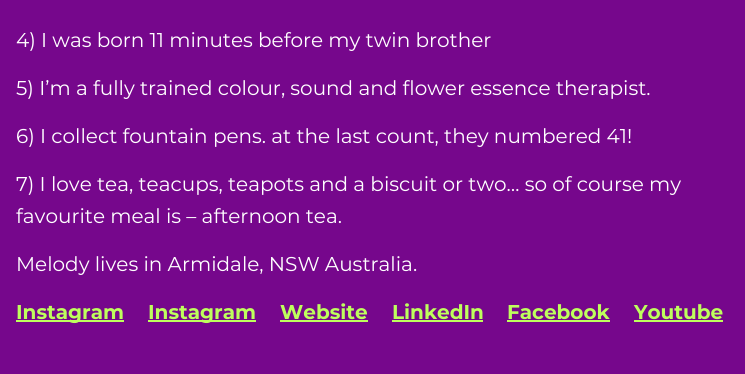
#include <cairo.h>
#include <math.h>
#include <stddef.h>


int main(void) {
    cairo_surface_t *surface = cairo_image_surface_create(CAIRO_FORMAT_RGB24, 745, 374);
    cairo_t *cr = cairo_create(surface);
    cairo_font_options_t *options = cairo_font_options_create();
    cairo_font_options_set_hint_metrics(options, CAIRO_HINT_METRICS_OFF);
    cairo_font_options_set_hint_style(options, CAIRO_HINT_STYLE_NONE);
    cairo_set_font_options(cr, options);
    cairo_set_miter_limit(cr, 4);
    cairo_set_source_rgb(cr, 0.463, 0.031, 0.549);
    cairo_paint(cr);
    cairo_select_font_face(cr, "Montserrat", CAIRO_FONT_SLANT_NORMAL, CAIRO_FONT_WEIGHT_NORMAL);
    cairo_set_font_size(cr, 20);
    cairo_set_source_rgb(cr, 1, 1, 1);
    cairo_move_to(cr, 16, 47);
    cairo_show_text(cr, "4) I was born 11 minutes before my twin brother");
    cairo_move_to(cr, 16, 95);
    cairo_show_text(cr, "5) I’m a fully trained colour, sound and flower essence therapist.");
    cairo_move_to(cr, 16, 143);
    cairo_show_text(cr, "6) I collect fountain pens. at the last count, they numbered 41!");
    cairo_move_to(cr, 16, 191);
    cairo_show_text(cr, "7) I love tea, teacups, teapots and a biscuit or two… so of course my");
    cairo_move_to(cr, 16, 223);
    cairo_show_text(cr, "favourite meal is – afternoon tea.");
    cairo_move_to(cr, 16, 271);
    cairo_show_text(cr, "Melody lives in Armidale, NSW Australia.");
    cairo_set_source_rgb(cr, 0.745, 1, 0.361);
    cairo_rectangle(cr, 16, 320, 108, 2);
    cairo_fill(cr);
    cairo_select_font_face(cr, "Montserrat", CAIRO_FONT_SLANT_NORMAL, CAIRO_FONT_WEIGHT_BOLD);
    cairo_move_to(cr, 16, 319);
    cairo_show_text(cr, "Instagram");
    cairo_rectangle(cr, 148, 320, 108, 2);
    cairo_fill(cr);
    cairo_move_to(cr, 148, 319);
    cairo_show_text(cr, "Instagram");
    cairo_move_to(cr, 280, 319);
    cairo_show_text(cr, "Website");
    cairo_rectangle(cr, 280, 320, 88, 2);
    cairo_fill(cr);
    cairo_move_to(cr, 392, 319);
    cairo_show_text(cr, "LinkedIn");
    cairo_rectangle(cr, 392, 320, 91, 2);
    cairo_fill(cr);
    cairo_move_to(cr, 507, 319);
    cairo_show_text(cr, "Facebook");
    cairo_rectangle(cr, 507, 320, 103, 2);
    cairo_fill(cr);
    cairo_move_to(cr, 634, 319);
    cairo_show_text(cr, "Youtube");
    cairo_rectangle(cr, 634, 320, 89, 2);
    cairo_fill(cr);
    cairo_surface_write_to_png(surface, "page.png");
    cairo_font_options_destroy(options);
    cairo_destroy(cr);
    cairo_surface_destroy(surface);
    return 0;
}
